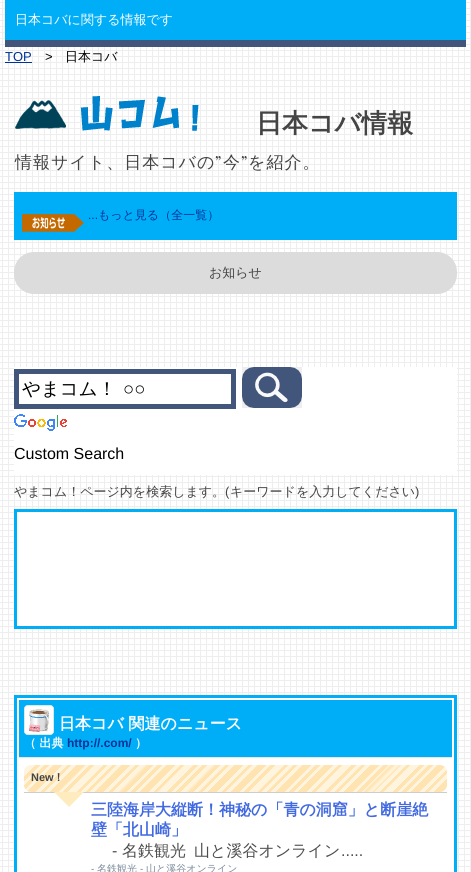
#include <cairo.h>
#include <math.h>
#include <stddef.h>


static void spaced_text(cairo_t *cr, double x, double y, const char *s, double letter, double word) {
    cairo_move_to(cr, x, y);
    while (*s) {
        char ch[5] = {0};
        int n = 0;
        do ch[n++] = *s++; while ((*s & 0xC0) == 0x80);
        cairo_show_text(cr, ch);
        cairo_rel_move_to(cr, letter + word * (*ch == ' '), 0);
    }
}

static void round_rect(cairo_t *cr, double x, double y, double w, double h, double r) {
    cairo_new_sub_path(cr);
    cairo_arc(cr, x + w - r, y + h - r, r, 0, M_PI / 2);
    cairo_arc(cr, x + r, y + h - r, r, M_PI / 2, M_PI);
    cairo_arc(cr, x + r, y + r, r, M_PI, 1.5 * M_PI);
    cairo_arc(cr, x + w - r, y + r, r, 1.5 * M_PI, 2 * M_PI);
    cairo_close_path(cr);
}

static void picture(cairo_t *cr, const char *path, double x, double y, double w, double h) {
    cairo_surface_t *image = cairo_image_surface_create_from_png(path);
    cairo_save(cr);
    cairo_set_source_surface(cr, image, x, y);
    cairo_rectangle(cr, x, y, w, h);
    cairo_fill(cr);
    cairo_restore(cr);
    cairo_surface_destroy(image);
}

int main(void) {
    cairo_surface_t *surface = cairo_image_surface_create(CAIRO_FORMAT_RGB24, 471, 872);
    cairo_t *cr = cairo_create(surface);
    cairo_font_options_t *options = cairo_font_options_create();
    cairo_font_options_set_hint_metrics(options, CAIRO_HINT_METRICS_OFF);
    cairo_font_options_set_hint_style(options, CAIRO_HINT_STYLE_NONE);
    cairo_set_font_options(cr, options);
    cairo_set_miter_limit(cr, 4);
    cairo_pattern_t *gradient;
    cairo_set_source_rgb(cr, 1, 1, 1);
    cairo_paint(cr);
    picture(cr, "img1.png", 0, 0, 471, 872);
    cairo_set_source_rgb(cr, 0.259, 0.333, 0.482);
    cairo_rectangle(cr, 5, 40, 461, 7);
    cairo_fill(cr);
    cairo_set_source_rgb(cr, 0, 0.682, 0.969);
    cairo_rectangle(cr, 5, 0, 461, 40);
    cairo_fill(cr);
    cairo_select_font_face(cr, "WenQuanYi Zen Hei Medium", CAIRO_FONT_SLANT_NORMAL, CAIRO_FONT_WEIGHT_NORMAL);
    cairo_set_font_size(cr, 13);
    cairo_set_source_rgb(cr, 1, 1, 1);
    cairo_move_to(cr, 15, 24);
    cairo_show_text(cr, "日本コバに関する情報です");
    cairo_select_font_face(cr, "Liberation Sans", CAIRO_FONT_SLANT_NORMAL, CAIRO_FONT_WEIGHT_NORMAL);
    cairo_set_source_rgb(cr, 0, 0.2, 0.6);
    cairo_move_to(cr, 5, 61);
    cairo_show_text(cr, "TOP");
    cairo_rectangle(cr, 5, 62, 27, 1);
    cairo_fill(cr);
    cairo_set_source_rgb(cr, 0, 0, 0);
    cairo_move_to(cr, 45, 61);
    cairo_show_text(cr, ">");
    cairo_select_font_face(cr, "WenQuanYi Zen Hei Medium", CAIRO_FONT_SLANT_NORMAL, CAIRO_FONT_WEIGHT_NORMAL);
    cairo_move_to(cr, 65, 61);
    cairo_show_text(cr, "日本コバ");
    picture(cr, "img2.png", 15, 96, 184, 35);
    cairo_select_font_face(cr, "WenQuanYi Zen Hei", CAIRO_FONT_SLANT_NORMAL, CAIRO_FONT_WEIGHT_BOLD);
    cairo_set_font_size(cr, 26);
    cairo_set_source_rgb(cr, 0.267, 0.267, 0.267);
    cairo_move_to(cr, 256, 132);
    cairo_show_text(cr, "日本コバ情報");
    cairo_select_font_face(cr, "WenQuanYi Zen Hei Medium", CAIRO_FONT_SLANT_NORMAL, CAIRO_FONT_WEIGHT_NORMAL);
    cairo_set_font_size(cr, 17);
    spaced_text(cr, 15, 168, "情報サイト、日本コバの", 1, 0);
    cairo_select_font_face(cr, "Vidaloka", CAIRO_FONT_SLANT_NORMAL, CAIRO_FONT_WEIGHT_NORMAL);
    spaced_text(cr, 215, 168, "”", 1, 0);
    cairo_select_font_face(cr, "WenQuanYi Zen Hei Medium", CAIRO_FONT_SLANT_NORMAL, CAIRO_FONT_WEIGHT_NORMAL);
    spaced_text(cr, 223, 168, "今", 1, 0);
    cairo_select_font_face(cr, "Vidaloka", CAIRO_FONT_SLANT_NORMAL, CAIRO_FONT_WEIGHT_NORMAL);
    spaced_text(cr, 241, 168, "”", 1, 0);
    cairo_select_font_face(cr, "WenQuanYi Zen Hei Medium", CAIRO_FONT_SLANT_NORMAL, CAIRO_FONT_WEIGHT_NORMAL);
    spaced_text(cr, 248, 168, "を紹介。", 1, 0);
    cairo_set_source_rgb(cr, 0, 0.682, 0.969);
    cairo_rectangle(cr, 14, 192, 443, 48);
    cairo_fill(cr);
    picture(cr, "img3.png", 22, 214, 62, 18);
    cairo_select_font_face(cr, "Liberation Sans", CAIRO_FONT_SLANT_NORMAL, CAIRO_FONT_WEIGHT_NORMAL);
    cairo_set_font_size(cr, 12);
    cairo_set_source_rgb(cr, 0, 0.2, 0.6);
    cairo_move_to(cr, 88, 219);
    cairo_show_text(cr, "...");
    cairo_select_font_face(cr, "WenQuanYi Zen Hei Medium", CAIRO_FONT_SLANT_NORMAL, CAIRO_FONT_WEIGHT_NORMAL);
    cairo_move_to(cr, 98, 219);
    cairo_show_text(cr, "もっと見る（全一覧）");
    cairo_set_source_rgb(cr, 0.863, 0.863, 0.863);
    round_rect(cr, 14, 252, 443, 42, 20);
    cairo_fill(cr);
    cairo_set_font_size(cr, 13);
    cairo_set_source_rgb(cr, 0.267, 0.267, 0.267);
    cairo_move_to(cr, 209, 277);
    cairo_show_text(cr, "お知らせ");
    cairo_set_source_rgb(cr, 1, 1, 1);
    cairo_rectangle(cr, 14, 367, 443, 108);
    cairo_fill(cr);
    cairo_rectangle(cr, 16.5, 371.5, 217, 35);
    cairo_set_source_rgb(cr, 0.259, 0.333, 0.482);
    cairo_set_line_width(cr, 5);
    cairo_stroke(cr);
    cairo_set_font_size(cr, 18.5);
    cairo_set_source_rgb(cr, 0, 0, 0);
    cairo_move_to(cr, 22, 395);
    cairo_show_text(cr, "やまコム！");
    cairo_select_font_face(cr, "Liberation Sans", CAIRO_FONT_SLANT_NORMAL, CAIRO_FONT_WEIGHT_NORMAL);
    cairo_move_to(cr, 123, 395);
    cairo_show_text(cr, "○○");
    picture(cr, "img4.png", 242, 367, 60, 41);
    picture(cr, "img5.png", 14, 414, 53, 17);
    cairo_set_font_size(cr, 16);
    cairo_move_to(cr, 14, 459);
    cairo_show_text(cr, "Custom Search");
    cairo_select_font_face(cr, "WenQuanYi Zen Hei Medium", CAIRO_FONT_SLANT_NORMAL, CAIRO_FONT_WEIGHT_NORMAL);
    cairo_set_font_size(cr, 13);
    cairo_set_source_rgb(cr, 0.267, 0.267, 0.267);
    cairo_move_to(cr, 14, 496);
    cairo_show_text(cr, "やまコム！ページ内を検索します。");
    cairo_select_font_face(cr, "Liberation Sans", CAIRO_FONT_SLANT_NORMAL, CAIRO_FONT_WEIGHT_NORMAL);
    cairo_move_to(cr, 225, 496);
    cairo_show_text(cr, "(");
    cairo_select_font_face(cr, "WenQuanYi Zen Hei Medium", CAIRO_FONT_SLANT_NORMAL, CAIRO_FONT_WEIGHT_NORMAL);
    cairo_move_to(cr, 230, 496);
    cairo_show_text(cr, "キーワードを入力してください");
    cairo_select_font_face(cr, "Liberation Sans", CAIRO_FONT_SLANT_NORMAL, CAIRO_FONT_WEIGHT_NORMAL);
    cairo_move_to(cr, 415, 496);
    cairo_show_text(cr, ")");
    cairo_set_source_rgb(cr, 1, 1, 1);
    cairo_rectangle(cr, 15.5, 510.5, 440, 117);
    cairo_fill_preserve(cr);
    cairo_set_source_rgb(cr, 0, 0.682, 0.969);
    cairo_set_line_width(cr, 3);
    cairo_stroke(cr);
    cairo_set_source_rgb(cr, 1, 1, 1);
    cairo_rectangle(cr, 15.5, 696.5, 440, 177);
    cairo_fill_preserve(cr);
    cairo_set_source_rgb(cr, 0, 0.682, 0.969);
    cairo_stroke(cr);
    cairo_rectangle(cr, 19, 700, 433, 57);
    cairo_fill(cr);
    cairo_set_source_rgb(cr, 0.906, 0.906, 0.906);
    cairo_rectangle(cr, 19, 757, 433, 1);
    cairo_fill(cr);
    picture(cr, "img6.png", 24, 705, 30, 30);
    cairo_select_font_face(cr, "WenQuanYi Zen Hei", CAIRO_FONT_SLANT_NORMAL, CAIRO_FONT_WEIGHT_BOLD);
    cairo_set_font_size(cr, 16);
    cairo_set_source_rgb(cr, 1, 1, 1);
    cairo_move_to(cr, 59, 729);
    cairo_show_text(cr, "日本コバ 関連のニュース");
    cairo_set_font_size(cr, 12);
    cairo_move_to(cr, 24, 747);
    cairo_show_text(cr, "（ 出典");
    cairo_select_font_face(cr, "Liberation Sans", CAIRO_FONT_SLANT_NORMAL, CAIRO_FONT_WEIGHT_BOLD);
    cairo_set_source_rgb(cr, 0, 0.2, 0.6);
    cairo_move_to(cr, 67, 747);
    cairo_show_text(cr, "http://.com/");
    cairo_select_font_face(cr, "WenQuanYi Zen Hei", CAIRO_FONT_SLANT_NORMAL, CAIRO_FONT_WEIGHT_BOLD);
    cairo_set_source_rgb(cr, 1, 1, 1);
    cairo_move_to(cr, 135, 747);
    cairo_show_text(cr, "）");
    gradient = cairo_pattern_create_linear(348, 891, 122, 665);
    cairo_pattern_add_color_stop_rgba(gradient, 0, 1, 0.961, 0.875, 1);
    cairo_pattern_add_color_stop_rgba(gradient, 0.01, 1, 0.961, 0.875, 1);
    cairo_pattern_add_color_stop_rgba(gradient, 0.01, 1, 0.894, 0.694, 1);
    cairo_pattern_add_color_stop_rgba(gradient, 0.03, 1, 0.894, 0.694, 1);
    cairo_pattern_add_color_stop_rgba(gradient, 0.03, 1, 0.961, 0.875, 1);
    cairo_pattern_add_color_stop_rgba(gradient, 0.04, 1, 0.961, 0.875, 1);
    cairo_pattern_add_color_stop_rgba(gradient, 0.04, 1, 0.894, 0.694, 1);
    cairo_pattern_add_color_stop_rgba(gradient, 0.05, 1, 0.894, 0.694, 1);
    cairo_pattern_add_color_stop_rgba(gradient, 0.05, 1, 0.961, 0.875, 1);
    cairo_pattern_add_color_stop_rgba(gradient, 0.06, 1, 0.961, 0.875, 1);
    cairo_pattern_add_color_stop_rgba(gradient, 0.06, 1, 0.894, 0.694, 1);
    cairo_pattern_add_color_stop_rgba(gradient, 0.08, 1, 0.894, 0.694, 1);
    cairo_pattern_add_color_stop_rgba(gradient, 0.08, 1, 0.961, 0.875, 1);
    cairo_pattern_add_color_stop_rgba(gradient, 0.09, 1, 0.961, 0.875, 1);
    cairo_pattern_add_color_stop_rgba(gradient, 0.09, 1, 0.894, 0.694, 1);
    cairo_pattern_add_color_stop_rgba(gradient, 0.1, 1, 0.894, 0.694, 1);
    cairo_pattern_add_color_stop_rgba(gradient, 0.1, 1, 0.961, 0.875, 1);
    cairo_pattern_add_color_stop_rgba(gradient, 0.11, 1, 0.961, 0.875, 1);
    cairo_pattern_add_color_stop_rgba(gradient, 0.11, 1, 0.894, 0.694, 1);
    cairo_pattern_add_color_stop_rgba(gradient, 0.12, 1, 0.894, 0.694, 1);
    cairo_pattern_add_color_stop_rgba(gradient, 0.12, 1, 0.961, 0.875, 1);
    cairo_pattern_add_color_stop_rgba(gradient, 0.14, 1, 0.961, 0.875, 1);
    cairo_pattern_add_color_stop_rgba(gradient, 0.14, 1, 0.894, 0.694, 1);
    cairo_pattern_add_color_stop_rgba(gradient, 0.15, 1, 0.894, 0.694, 1);
    cairo_pattern_add_color_stop_rgba(gradient, 0.15, 1, 0.961, 0.875, 1);
    cairo_pattern_add_color_stop_rgba(gradient, 0.16, 1, 0.961, 0.875, 1);
    cairo_pattern_add_color_stop_rgba(gradient, 0.16, 1, 0.894, 0.694, 1);
    cairo_pattern_add_color_stop_rgba(gradient, 0.18, 1, 0.894, 0.694, 1);
    cairo_pattern_add_color_stop_rgba(gradient, 0.17, 1, 0.961, 0.875, 1);
    cairo_pattern_add_color_stop_rgba(gradient, 0.19, 1, 0.961, 0.875, 1);
    cairo_pattern_add_color_stop_rgba(gradient, 0.19, 1, 0.894, 0.694, 1);
    cairo_pattern_add_color_stop_rgba(gradient, 0.2, 1, 0.894, 0.694, 1);
    cairo_pattern_add_color_stop_rgba(gradient, 0.2, 1, 0.961, 0.875, 1);
    cairo_pattern_add_color_stop_rgba(gradient, 0.21, 1, 0.961, 0.875, 1);
    cairo_pattern_add_color_stop_rgba(gradient, 0.21, 1, 0.894, 0.694, 1);
    cairo_pattern_add_color_stop_rgba(gradient, 0.23, 1, 0.894, 0.694, 1);
    cairo_pattern_add_color_stop_rgba(gradient, 0.23, 1, 0.961, 0.875, 1);
    cairo_pattern_add_color_stop_rgba(gradient, 0.24, 1, 0.961, 0.875, 1);
    cairo_pattern_add_color_stop_rgba(gradient, 0.24, 1, 0.894, 0.694, 1);
    cairo_pattern_add_color_stop_rgba(gradient, 0.25, 1, 0.894, 0.694, 1);
    cairo_pattern_add_color_stop_rgba(gradient, 0.25, 1, 0.961, 0.875, 1);
    cairo_pattern_add_color_stop_rgba(gradient, 0.26, 1, 0.961, 0.875, 1);
    cairo_pattern_add_color_stop_rgba(gradient, 0.26, 1, 0.894, 0.694, 1);
    cairo_pattern_add_color_stop_rgba(gradient, 0.27, 1, 0.894, 0.694, 1);
    cairo_pattern_add_color_stop_rgba(gradient, 0.27, 1, 0.961, 0.875, 1);
    cairo_pattern_add_color_stop_rgba(gradient, 0.29, 1, 0.961, 0.875, 1);
    cairo_pattern_add_color_stop_rgba(gradient, 0.29, 1, 0.894, 0.694, 1);
    cairo_pattern_add_color_stop_rgba(gradient, 0.3, 1, 0.894, 0.694, 1);
    cairo_pattern_add_color_stop_rgba(gradient, 0.3, 1, 0.961, 0.875, 1);
    cairo_pattern_add_color_stop_rgba(gradient, 0.31, 1, 0.961, 0.875, 1);
    cairo_pattern_add_color_stop_rgba(gradient, 0.31, 1, 0.894, 0.694, 1);
    cairo_pattern_add_color_stop_rgba(gradient, 0.33, 1, 0.894, 0.694, 1);
    cairo_pattern_add_color_stop_rgba(gradient, 0.33, 1, 0.961, 0.875, 1);
    cairo_pattern_add_color_stop_rgba(gradient, 0.34, 1, 0.961, 0.875, 1);
    cairo_pattern_add_color_stop_rgba(gradient, 0.34, 1, 0.894, 0.694, 1);
    cairo_pattern_add_color_stop_rgba(gradient, 0.35, 1, 0.894, 0.694, 1);
    cairo_pattern_add_color_stop_rgba(gradient, 0.35, 1, 0.961, 0.875, 1);
    cairo_pattern_add_color_stop_rgba(gradient, 0.36, 1, 0.961, 0.875, 1);
    cairo_pattern_add_color_stop_rgba(gradient, 0.36, 1, 0.894, 0.694, 1);
    cairo_pattern_add_color_stop_rgba(gradient, 0.38, 1, 0.894, 0.694, 1);
    cairo_pattern_add_color_stop_rgba(gradient, 0.38, 1, 0.961, 0.875, 1);
    cairo_pattern_add_color_stop_rgba(gradient, 0.39, 1, 0.961, 0.875, 1);
    cairo_pattern_add_color_stop_rgba(gradient, 0.39, 1, 0.894, 0.694, 1);
    cairo_pattern_add_color_stop_rgba(gradient, 0.4, 1, 0.894, 0.694, 1);
    cairo_pattern_add_color_stop_rgba(gradient, 0.4, 1, 0.961, 0.875, 1);
    cairo_pattern_add_color_stop_rgba(gradient, 0.41, 1, 0.961, 0.875, 1);
    cairo_pattern_add_color_stop_rgba(gradient, 0.41, 1, 0.894, 0.694, 1);
    cairo_pattern_add_color_stop_rgba(gradient, 0.42, 1, 0.894, 0.694, 1);
    cairo_pattern_add_color_stop_rgba(gradient, 0.42, 1, 0.961, 0.875, 1);
    cairo_pattern_add_color_stop_rgba(gradient, 0.44, 1, 0.961, 0.875, 1);
    cairo_pattern_add_color_stop_rgba(gradient, 0.44, 1, 0.894, 0.694, 1);
    cairo_pattern_add_color_stop_rgba(gradient, 0.45, 1, 0.894, 0.694, 1);
    cairo_pattern_add_color_stop_rgba(gradient, 0.45, 1, 0.961, 0.875, 1);
    cairo_pattern_add_color_stop_rgba(gradient, 0.46, 1, 0.961, 0.875, 1);
    cairo_pattern_add_color_stop_rgba(gradient, 0.46, 1, 0.894, 0.694, 1);
    cairo_pattern_add_color_stop_rgba(gradient, 0.48, 1, 0.894, 0.694, 1);
    cairo_pattern_add_color_stop_rgba(gradient, 0.48, 1, 0.961, 0.875, 1);
    cairo_pattern_add_color_stop_rgba(gradient, 0.49, 1, 0.961, 0.875, 1);
    cairo_pattern_add_color_stop_rgba(gradient, 0.49, 1, 0.894, 0.694, 1);
    cairo_pattern_add_color_stop_rgba(gradient, 0.5, 1, 0.894, 0.694, 1);
    cairo_pattern_add_color_stop_rgba(gradient, 0.5, 1, 0.961, 0.875, 1);
    cairo_pattern_add_color_stop_rgba(gradient, 0.51, 1, 0.961, 0.875, 1);
    cairo_pattern_add_color_stop_rgba(gradient, 0.51, 1, 0.894, 0.694, 1);
    cairo_pattern_add_color_stop_rgba(gradient, 0.53, 1, 0.894, 0.694, 1);
    cairo_pattern_add_color_stop_rgba(gradient, 0.53, 1, 0.961, 0.875, 1);
    cairo_pattern_add_color_stop_rgba(gradient, 0.54, 1, 0.961, 0.875, 1);
    cairo_pattern_add_color_stop_rgba(gradient, 0.54, 1, 0.894, 0.694, 1);
    cairo_pattern_add_color_stop_rgba(gradient, 0.55, 1, 0.894, 0.694, 1);
    cairo_pattern_add_color_stop_rgba(gradient, 0.55, 1, 0.961, 0.875, 1);
    cairo_pattern_add_color_stop_rgba(gradient, 0.56, 1, 0.961, 0.875, 1);
    cairo_pattern_add_color_stop_rgba(gradient, 0.56, 1, 0.894, 0.694, 1);
    cairo_pattern_add_color_stop_rgba(gradient, 0.57, 1, 0.894, 0.694, 1);
    cairo_pattern_add_color_stop_rgba(gradient, 0.58, 1, 0.961, 0.875, 1);
    cairo_pattern_add_color_stop_rgba(gradient, 0.59, 1, 0.961, 0.875, 1);
    cairo_pattern_add_color_stop_rgba(gradient, 0.59, 1, 0.894, 0.694, 1);
    cairo_pattern_add_color_stop_rgba(gradient, 0.6, 1, 0.894, 0.694, 1);
    cairo_pattern_add_color_stop_rgba(gradient, 0.6, 1, 0.961, 0.875, 1);
    cairo_pattern_add_color_stop_rgba(gradient, 0.61, 1, 0.961, 0.875, 1);
    cairo_pattern_add_color_stop_rgba(gradient, 0.61, 1, 0.894, 0.694, 1);
    cairo_pattern_add_color_stop_rgba(gradient, 0.62, 1, 0.894, 0.694, 1);
    cairo_pattern_add_color_stop_rgba(gradient, 0.62, 1, 0.961, 0.875, 1);
    cairo_pattern_add_color_stop_rgba(gradient, 0.64, 1, 0.961, 0.875, 1);
    cairo_pattern_add_color_stop_rgba(gradient, 0.64, 1, 0.894, 0.694, 1);
    cairo_pattern_add_color_stop_rgba(gradient, 0.65, 1, 0.894, 0.694, 1);
    cairo_pattern_add_color_stop_rgba(gradient, 0.65, 1, 0.961, 0.875, 1);
    cairo_pattern_add_color_stop_rgba(gradient, 0.66, 1, 0.961, 0.875, 1);
    cairo_pattern_add_color_stop_rgba(gradient, 0.66, 1, 0.894, 0.694, 1);
    cairo_pattern_add_color_stop_rgba(gradient, 0.68, 1, 0.894, 0.694, 1);
    cairo_pattern_add_color_stop_rgba(gradient, 0.68, 1, 0.961, 0.875, 1);
    cairo_pattern_add_color_stop_rgba(gradient, 0.69, 1, 0.961, 0.875, 1);
    cairo_pattern_add_color_stop_rgba(gradient, 0.69, 1, 0.894, 0.694, 1);
    cairo_pattern_add_color_stop_rgba(gradient, 0.7, 1, 0.894, 0.694, 1);
    cairo_pattern_add_color_stop_rgba(gradient, 0.7, 1, 0.961, 0.875, 1);
    cairo_pattern_add_color_stop_rgba(gradient, 0.71, 1, 0.961, 0.875, 1);
    cairo_pattern_add_color_stop_rgba(gradient, 0.71, 1, 0.894, 0.694, 1);
    cairo_pattern_add_color_stop_rgba(gradient, 0.72, 1, 0.894, 0.694, 1);
    cairo_pattern_add_color_stop_rgba(gradient, 0.73, 1, 0.961, 0.875, 1);
    cairo_pattern_add_color_stop_rgba(gradient, 0.74, 1, 0.961, 0.875, 1);
    cairo_pattern_add_color_stop_rgba(gradient, 0.74, 1, 0.894, 0.694, 1);
    cairo_pattern_add_color_stop_rgba(gradient, 0.75, 1, 0.894, 0.694, 1);
    cairo_pattern_add_color_stop_rgba(gradient, 0.75, 1, 0.961, 0.875, 1);
    cairo_pattern_add_color_stop_rgba(gradient, 0.76, 1, 0.961, 0.875, 1);
    cairo_pattern_add_color_stop_rgba(gradient, 0.76, 1, 0.894, 0.694, 1);
    cairo_pattern_add_color_stop_rgba(gradient, 0.78, 1, 0.894, 0.694, 1);
    cairo_pattern_add_color_stop_rgba(gradient, 0.78, 1, 0.961, 0.875, 1);
    cairo_pattern_add_color_stop_rgba(gradient, 0.79, 1, 0.961, 0.875, 1);
    cairo_pattern_add_color_stop_rgba(gradient, 0.79, 1, 0.894, 0.694, 1);
    cairo_pattern_add_color_stop_rgba(gradient, 0.8, 1, 0.894, 0.694, 1);
    cairo_pattern_add_color_stop_rgba(gradient, 0.8, 1, 0.961, 0.875, 1);
    cairo_pattern_add_color_stop_rgba(gradient, 0.81, 1, 0.961, 0.875, 1);
    cairo_pattern_add_color_stop_rgba(gradient, 0.81, 1, 0.894, 0.694, 1);
    cairo_pattern_add_color_stop_rgba(gradient, 0.82, 1, 0.894, 0.694, 1);
    cairo_pattern_add_color_stop_rgba(gradient, 0.82, 1, 0.961, 0.875, 1);
    cairo_pattern_add_color_stop_rgba(gradient, 0.84, 1, 0.961, 0.875, 1);
    cairo_pattern_add_color_stop_rgba(gradient, 0.84, 1, 0.894, 0.694, 1);
    cairo_pattern_add_color_stop_rgba(gradient, 0.85, 1, 0.894, 0.694, 1);
    cairo_pattern_add_color_stop_rgba(gradient, 0.85, 1, 0.961, 0.875, 1);
    cairo_pattern_add_color_stop_rgba(gradient, 0.86, 1, 0.961, 0.875, 1);
    cairo_pattern_add_color_stop_rgba(gradient, 0.86, 1, 0.894, 0.694, 1);
    cairo_pattern_add_color_stop_rgba(gradient, 0.88, 1, 0.894, 0.694, 1);
    cairo_pattern_add_color_stop_rgba(gradient, 0.88, 1, 0.961, 0.875, 1);
    cairo_pattern_add_color_stop_rgba(gradient, 0.89, 1, 0.961, 0.875, 1);
    cairo_pattern_add_color_stop_rgba(gradient, 0.89, 1, 0.894, 0.694, 1);
    cairo_pattern_add_color_stop_rgba(gradient, 0.9, 1, 0.894, 0.694, 1);
    cairo_pattern_add_color_stop_rgba(gradient, 0.9, 1, 0.961, 0.875, 1);
    cairo_pattern_add_color_stop_rgba(gradient, 0.91, 1, 0.961, 0.875, 1);
    cairo_pattern_add_color_stop_rgba(gradient, 0.91, 1, 0.894, 0.694, 1);
    cairo_pattern_add_color_stop_rgba(gradient, 0.93, 1, 0.894, 0.694, 1);
    cairo_pattern_add_color_stop_rgba(gradient, 0.93, 1, 0.961, 0.875, 1);
    cairo_pattern_add_color_stop_rgba(gradient, 0.94, 1, 0.961, 0.875, 1);
    cairo_pattern_add_color_stop_rgba(gradient, 0.94, 1, 0.894, 0.694, 1);
    cairo_pattern_add_color_stop_rgba(gradient, 0.95, 1, 0.894, 0.694, 1);
    cairo_pattern_add_color_stop_rgba(gradient, 0.95, 1, 0.961, 0.875, 1);
    cairo_pattern_add_color_stop_rgba(gradient, 0.96, 1, 0.961, 0.875, 1);
    cairo_pattern_add_color_stop_rgba(gradient, 0.96, 1, 0.894, 0.694, 1);
    cairo_pattern_add_color_stop_rgba(gradient, 0.97, 1, 0.894, 0.694, 1);
    cairo_pattern_add_color_stop_rgba(gradient, 0.97, 1, 0.961, 0.875, 1);
    cairo_pattern_add_color_stop_rgba(gradient, 0.99, 1, 0.961, 0.875, 1);
    cairo_pattern_add_color_stop_rgba(gradient, 0.99, 1, 0.894, 0.694, 1);
    cairo_pattern_add_color_stop_rgba(gradient, 1, 1, 0.894, 0.694, 1);
    cairo_set_source(cr, gradient);
    cairo_pattern_destroy(gradient);
    round_rect(cr, 24, 765, 423, 27, 7);
    cairo_fill(cr);
    cairo_select_font_face(cr, "Liberation Sans", CAIRO_FONT_SLANT_NORMAL, CAIRO_FONT_WEIGHT_BOLD);
    cairo_set_font_size(cr, 11);
    cairo_set_source_rgb(cr, 0.267, 0.267, 0.267);
    cairo_move_to(cr, 31, 781);
    cairo_show_text(cr, "New");
    cairo_select_font_face(cr, "WenQuanYi Zen Hei", CAIRO_FONT_SLANT_NORMAL, CAIRO_FONT_WEIGHT_BOLD);
    cairo_move_to(cr, 53, 781);
    cairo_show_text(cr, "！");
    cairo_set_source_rgb(cr, 0.8, 0.8, 0.8);
    cairo_rectangle(cr, 24, 792, 423, 1);
    cairo_fill(cr);
    cairo_set_source_rgb(cr, 1, 0.922, 0.745);
    cairo_new_path(cr);
    cairo_move_to(cr, 54, 792);
    cairo_line_to(cr, 84, 792);
    cairo_line_to(cr, 69, 807);
    cairo_close_path(cr);
    cairo_fill(cr);
    cairo_set_font_size(cr, 16);
    cairo_set_source_rgb(cr, 0.255, 0.412, 0.882);
    cairo_move_to(cr, 91, 815);
    cairo_show_text(cr, "三陸海岸大縦断！神秘の「青の洞窟」と断崖絶");
    cairo_move_to(cr, 91, 835);
    cairo_show_text(cr, "壁「北山崎」");
    cairo_select_font_face(cr, "Liberation Sans", CAIRO_FONT_SLANT_NORMAL, CAIRO_FONT_WEIGHT_NORMAL);
    cairo_set_source_rgb(cr, 0.302, 0.302, 0.302);
    cairo_move_to(cr, 112, 856);
    cairo_show_text(cr, "-");
    cairo_select_font_face(cr, "WenQuanYi Zen Hei Medium", CAIRO_FONT_SLANT_NORMAL, CAIRO_FONT_WEIGHT_NORMAL);
    cairo_move_to(cr, 122, 856);
    cairo_show_text(cr, "名鉄観光");
    cairo_move_to(cr, 194, 856);
    cairo_show_text(cr, "山と溪谷オンライン");
    cairo_select_font_face(cr, "Liberation Sans", CAIRO_FONT_SLANT_NORMAL, CAIRO_FONT_WEIGHT_NORMAL);
    cairo_move_to(cr, 341, 856);
    cairo_show_text(cr, ".....");
    cairo_set_font_size(cr, 10);
    cairo_set_source_rgb(cr, 0.467, 0.533, 0.6);
    cairo_move_to(cr, 91, 872);
    cairo_show_text(cr, "-");
    cairo_select_font_face(cr, "WenQuanYi Zen Hei Medium", CAIRO_FONT_SLANT_NORMAL, CAIRO_FONT_WEIGHT_NORMAL);
    cairo_move_to(cr, 97, 872);
    cairo_show_text(cr, "名鉄観光");
    cairo_select_font_face(cr, "Liberation Sans", CAIRO_FONT_SLANT_NORMAL, CAIRO_FONT_WEIGHT_NORMAL);
    cairo_move_to(cr, 140, 872);
    cairo_show_text(cr, "-");
    cairo_select_font_face(cr, "WenQuanYi Zen Hei Medium", CAIRO_FONT_SLANT_NORMAL, CAIRO_FONT_WEIGHT_NORMAL);
    cairo_move_to(cr, 146, 872);
    cairo_show_text(cr, "山と溪谷オンライン");
    cairo_surface_write_to_png(surface, "page.png");
    cairo_font_options_destroy(options);
    cairo_destroy(cr);
    cairo_surface_destroy(surface);
    return 0;
}
